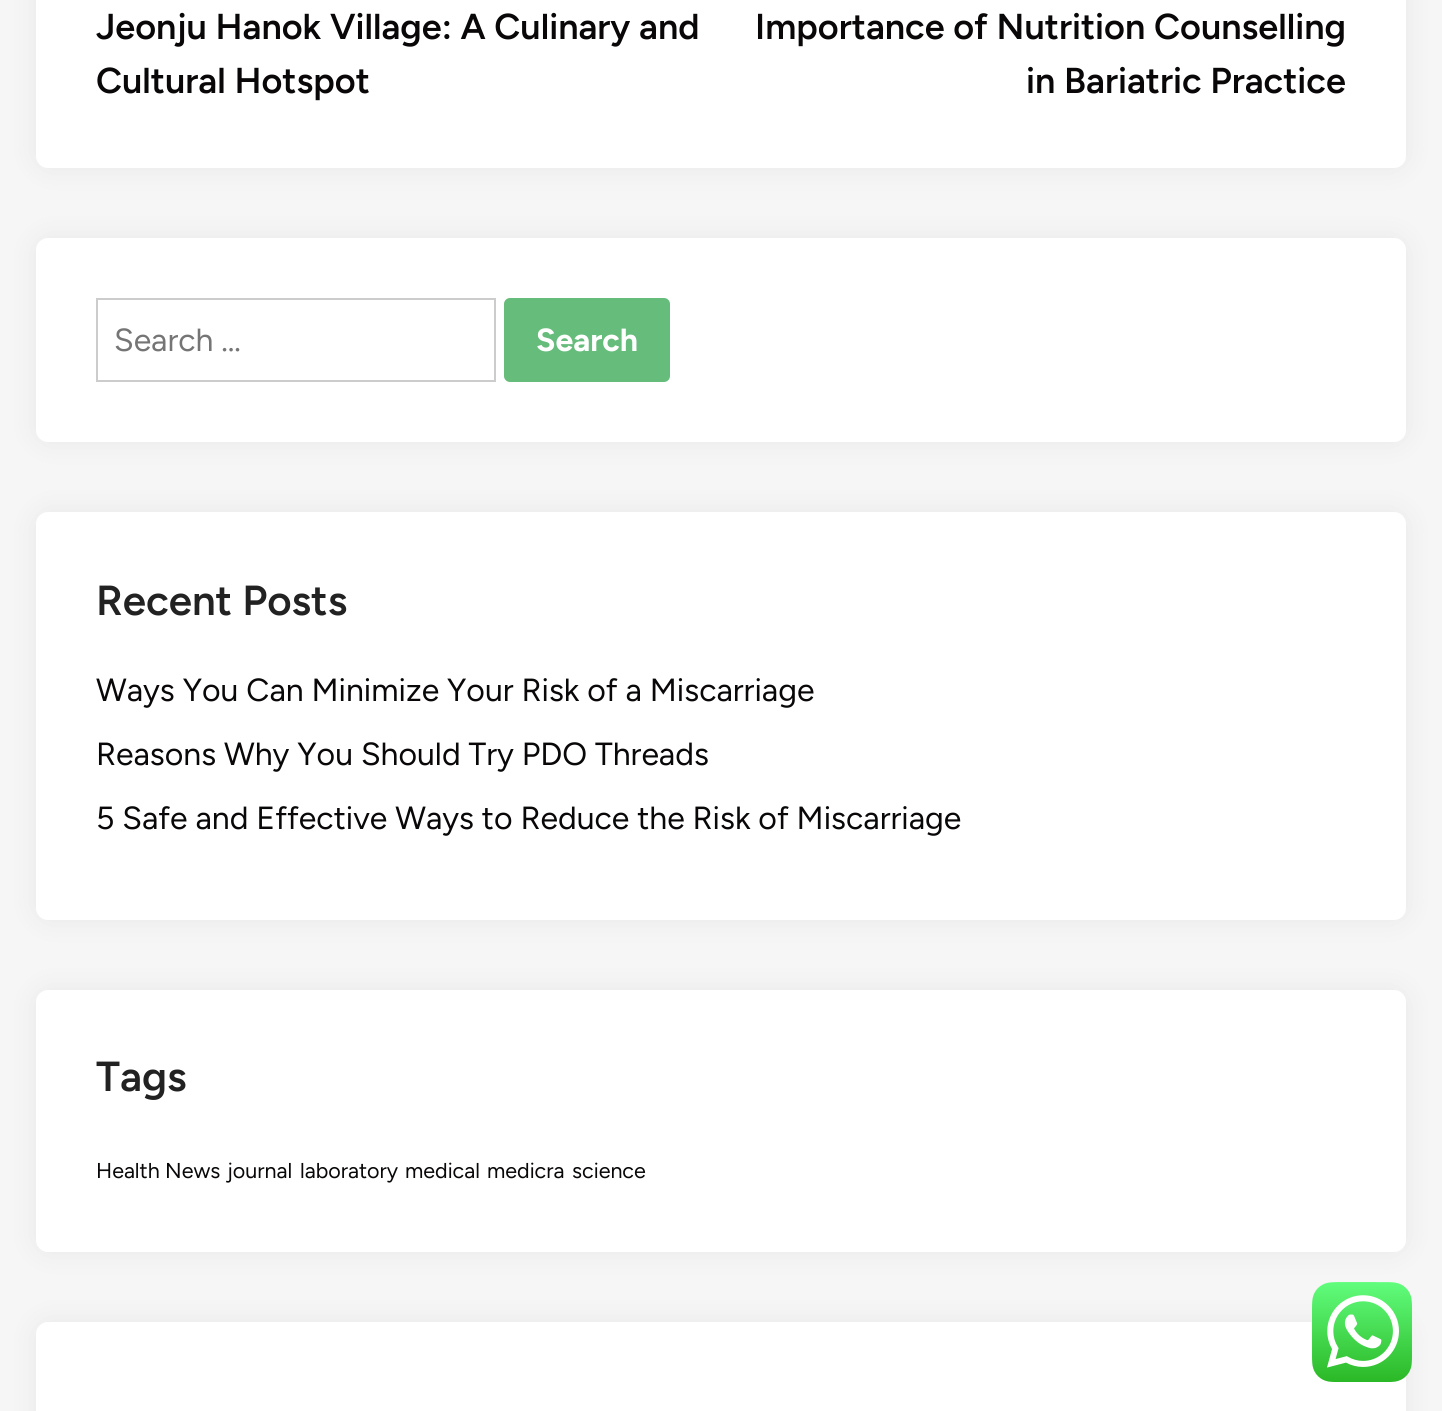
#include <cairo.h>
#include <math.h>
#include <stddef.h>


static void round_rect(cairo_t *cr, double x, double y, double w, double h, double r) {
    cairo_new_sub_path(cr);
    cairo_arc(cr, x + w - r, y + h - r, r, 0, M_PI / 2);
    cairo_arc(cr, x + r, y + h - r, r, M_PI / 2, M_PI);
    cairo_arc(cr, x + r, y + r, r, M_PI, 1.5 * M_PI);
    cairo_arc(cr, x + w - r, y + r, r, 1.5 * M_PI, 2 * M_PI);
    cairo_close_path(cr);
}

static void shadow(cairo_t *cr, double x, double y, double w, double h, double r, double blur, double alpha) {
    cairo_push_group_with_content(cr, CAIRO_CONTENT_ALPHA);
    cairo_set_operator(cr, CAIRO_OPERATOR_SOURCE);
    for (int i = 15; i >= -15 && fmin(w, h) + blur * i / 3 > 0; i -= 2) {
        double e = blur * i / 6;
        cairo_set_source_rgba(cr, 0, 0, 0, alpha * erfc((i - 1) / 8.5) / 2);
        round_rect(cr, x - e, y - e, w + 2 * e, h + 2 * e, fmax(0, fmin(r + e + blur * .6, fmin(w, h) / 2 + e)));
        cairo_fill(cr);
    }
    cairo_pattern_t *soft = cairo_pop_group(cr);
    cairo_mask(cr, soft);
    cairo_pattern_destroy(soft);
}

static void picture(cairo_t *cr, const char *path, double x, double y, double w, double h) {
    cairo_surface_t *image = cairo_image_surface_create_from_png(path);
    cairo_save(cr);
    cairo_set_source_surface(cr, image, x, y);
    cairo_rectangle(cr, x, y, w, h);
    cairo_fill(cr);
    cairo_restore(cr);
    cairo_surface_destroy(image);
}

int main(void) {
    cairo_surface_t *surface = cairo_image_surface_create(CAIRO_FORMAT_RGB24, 1442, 1411);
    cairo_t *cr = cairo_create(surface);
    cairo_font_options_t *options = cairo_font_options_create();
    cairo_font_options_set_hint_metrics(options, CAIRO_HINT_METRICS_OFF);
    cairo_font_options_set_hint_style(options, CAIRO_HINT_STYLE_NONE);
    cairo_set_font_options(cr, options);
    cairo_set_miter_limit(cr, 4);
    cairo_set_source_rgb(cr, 0.961, 0.961, 0.961);
    cairo_paint(cr);
    cairo_set_source_rgb(cr, 0, 0, 0);
    shadow(cr, 36, -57, 1370, 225, 12, 15, 0.06);
    cairo_set_source_rgb(cr, 1, 1, 1);
    round_rect(cr, 36, -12, 1370, 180, 12);
    cairo_fill(cr);
    cairo_select_font_face(cr, "Figtree SemiBold", CAIRO_FONT_SLANT_NORMAL, CAIRO_FONT_WEIGHT_NORMAL);
    cairo_set_font_size(cr, 36);
    cairo_set_source_rgb(cr, 0.039, 0.031, 0.031);
    cairo_move_to(cr, 96, 39);
    cairo_show_text(cr, "Jeonju Hanok Village: A Culinary and");
    cairo_move_to(cr, 96, 93);
    cairo_show_text(cr, "Cultural Hotspot");
    cairo_move_to(cr, 755, 39);
    cairo_show_text(cr, "Importance of Nutrition Counselling");
    cairo_move_to(cr, 1026, 93);
    cairo_show_text(cr, "in Bariatric Practice");
    cairo_set_source_rgb(cr, 0, 0, 0);
    shadow(cr, 36, 238, 1370, 204, 12, 15, 0.06);
    cairo_set_source_rgb(cr, 1, 1, 1);
    round_rect(cr, 36, 238, 1370, 204, 12);
    cairo_fill(cr);
    cairo_rectangle(cr, 97, 299, 398, 82);
    cairo_set_source_rgb(cr, 0.8, 0.8, 0.8);
    cairo_stroke(cr);
    cairo_select_font_face(cr, "Figtree", CAIRO_FONT_SLANT_NORMAL, CAIRO_FONT_WEIGHT_NORMAL);
    cairo_set_font_size(cr, 32);
    cairo_set_source_rgb(cr, 0.459, 0.459, 0.459);
    cairo_move_to(cr, 114, 351);
    cairo_show_text(cr, "Search …");
    cairo_set_source_rgb(cr, 0.396, 0.737, 0.482);
    round_rect(cr, 504, 298, 166, 84, 6);
    cairo_fill(cr);
    cairo_select_font_face(cr, "Figtree", CAIRO_FONT_SLANT_NORMAL, CAIRO_FONT_WEIGHT_BOLD);
    cairo_set_source_rgb(cr, 1, 1, 1);
    cairo_move_to(cr, 536, 351);
    cairo_show_text(cr, "Search");
    cairo_set_source_rgb(cr, 0, 0, 0);
    shadow(cr, 36, 512, 1370, 408, 12, 15, 0.06);
    cairo_set_source_rgb(cr, 1, 1, 1);
    round_rect(cr, 36, 512, 1370, 408, 12);
    cairo_fill(cr);
    cairo_select_font_face(cr, "Figtree SemiBold", CAIRO_FONT_SLANT_NORMAL, CAIRO_FONT_WEIGHT_NORMAL);
    cairo_set_font_size(cr, 42);
    cairo_set_source_rgb(cr, 0.133, 0.133, 0.133);
    cairo_move_to(cr, 96, 615);
    cairo_show_text(cr, "Recent Posts");
    cairo_select_font_face(cr, "Figtree", CAIRO_FONT_SLANT_NORMAL, CAIRO_FONT_WEIGHT_NORMAL);
    cairo_set_font_size(cr, 32);
    cairo_set_source_rgb(cr, 0.039, 0.031, 0.031);
    cairo_move_to(cr, 96, 701);
    cairo_show_text(cr, "Ways You Can Minimize Your Risk of a Miscarriage");
    cairo_move_to(cr, 96, 765);
    cairo_show_text(cr, "Reasons Why You Should Try PDO Threads");
    cairo_move_to(cr, 96, 829);
    cairo_show_text(cr, "5 Safe and Effective Ways to Reduce the Risk of Miscarriage");
    cairo_set_source_rgb(cr, 0, 0, 0);
    shadow(cr, 36, 990, 1370, 262, 12, 15, 0.06);
    cairo_set_source_rgb(cr, 1, 1, 1);
    round_rect(cr, 36, 990, 1370, 262, 12);
    cairo_fill(cr);
    cairo_select_font_face(cr, "Figtree SemiBold", CAIRO_FONT_SLANT_NORMAL, CAIRO_FONT_WEIGHT_NORMAL);
    cairo_set_font_size(cr, 42);
    cairo_set_source_rgb(cr, 0.133, 0.133, 0.133);
    cairo_move_to(cr, 96, 1091);
    cairo_show_text(cr, "Tags");
    cairo_select_font_face(cr, "Figtree", CAIRO_FONT_SLANT_NORMAL, CAIRO_FONT_WEIGHT_NORMAL);
    cairo_set_font_size(cr, 21.5);
    cairo_set_source_rgb(cr, 0.039, 0.031, 0.031);
    cairo_move_to(cr, 96, 1178);
    cairo_show_text(cr, "Health News");
    cairo_move_to(cr, 227, 1178);
    cairo_show_text(cr, "journal");
    cairo_move_to(cr, 300, 1178);
    cairo_show_text(cr, "laboratory");
    cairo_move_to(cr, 405, 1178);
    cairo_show_text(cr, "medical");
    cairo_move_to(cr, 487, 1178);
    cairo_show_text(cr, "medicra");
    cairo_move_to(cr, 572, 1178);
    cairo_show_text(cr, "science");
    cairo_set_source_rgb(cr, 0, 0, 0);
    shadow(cr, 36, 1322, 1370, 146, 12, 15, 0.06);
    cairo_set_source_rgb(cr, 1, 1, 1);
    round_rect(cr, 36, 1322, 1370, 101, 12);
    cairo_fill(cr);
    picture(cr, "img1.png", 1312, 1282, 100, 100);
    cairo_surface_write_to_png(surface, "page.png");
    cairo_font_options_destroy(options);
    cairo_destroy(cr);
    cairo_surface_destroy(surface);
    return 0;
}
